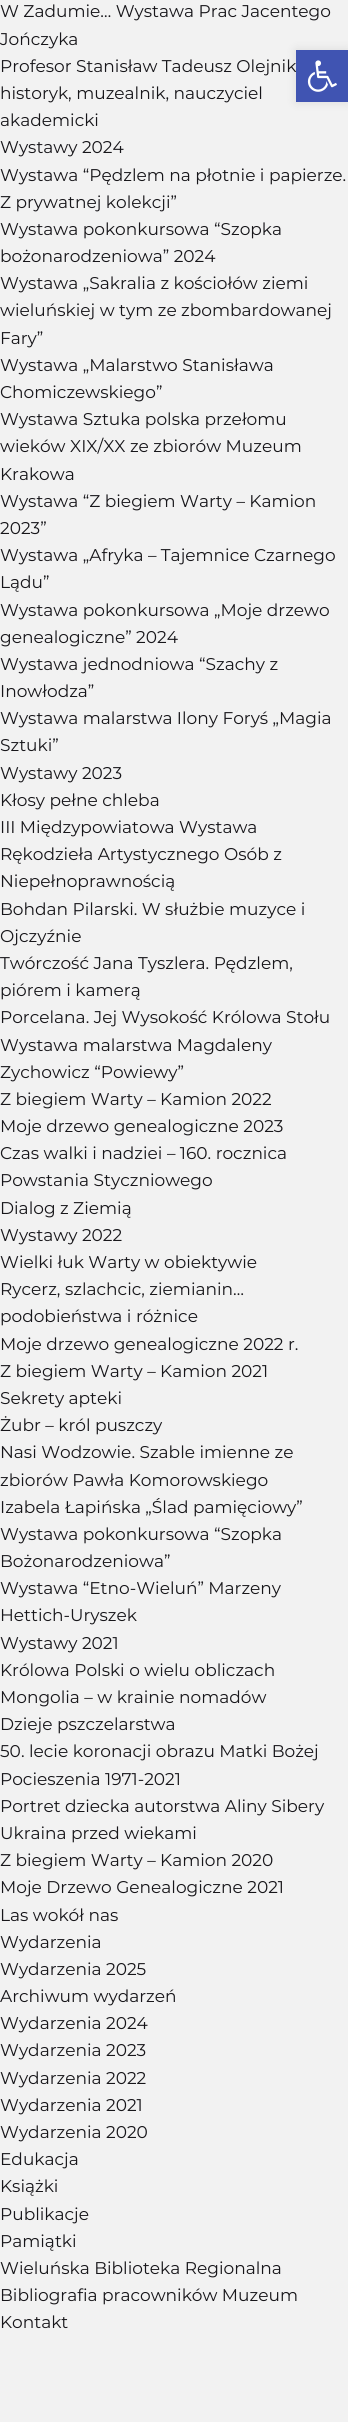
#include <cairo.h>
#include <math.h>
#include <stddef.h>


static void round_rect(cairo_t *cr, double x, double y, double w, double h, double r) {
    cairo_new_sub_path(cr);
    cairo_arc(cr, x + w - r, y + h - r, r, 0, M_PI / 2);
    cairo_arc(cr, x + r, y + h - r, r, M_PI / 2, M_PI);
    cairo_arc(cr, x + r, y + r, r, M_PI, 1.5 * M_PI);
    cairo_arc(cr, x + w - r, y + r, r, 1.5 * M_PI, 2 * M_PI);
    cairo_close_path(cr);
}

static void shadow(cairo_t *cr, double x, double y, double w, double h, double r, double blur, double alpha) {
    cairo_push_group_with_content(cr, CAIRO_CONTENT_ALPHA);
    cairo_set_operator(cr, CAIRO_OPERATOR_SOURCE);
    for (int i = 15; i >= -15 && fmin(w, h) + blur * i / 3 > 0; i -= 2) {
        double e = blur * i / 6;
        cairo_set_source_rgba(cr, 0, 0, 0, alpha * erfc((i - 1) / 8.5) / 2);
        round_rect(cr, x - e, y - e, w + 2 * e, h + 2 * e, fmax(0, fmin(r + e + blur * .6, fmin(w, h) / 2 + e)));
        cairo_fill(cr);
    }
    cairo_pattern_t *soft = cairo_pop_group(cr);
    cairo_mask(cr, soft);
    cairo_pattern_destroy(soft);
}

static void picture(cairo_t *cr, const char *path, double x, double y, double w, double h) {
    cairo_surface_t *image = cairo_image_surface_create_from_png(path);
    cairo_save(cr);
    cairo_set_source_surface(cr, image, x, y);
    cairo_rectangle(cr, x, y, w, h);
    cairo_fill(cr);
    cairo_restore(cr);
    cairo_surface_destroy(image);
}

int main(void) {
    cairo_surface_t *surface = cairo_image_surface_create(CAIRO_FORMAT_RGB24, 348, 2422);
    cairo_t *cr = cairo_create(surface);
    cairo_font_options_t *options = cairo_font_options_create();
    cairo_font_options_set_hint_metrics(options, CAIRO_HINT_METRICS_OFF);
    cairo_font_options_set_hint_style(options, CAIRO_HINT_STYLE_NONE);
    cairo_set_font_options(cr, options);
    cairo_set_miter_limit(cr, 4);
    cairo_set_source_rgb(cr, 0.949, 0.949, 0.949);
    cairo_paint(cr);
    cairo_select_font_face(cr, "Montserrat", CAIRO_FONT_SLANT_NORMAL, CAIRO_FONT_WEIGHT_NORMAL);
    cairo_set_font_size(cr, 17);
    cairo_set_source_rgb(cr, 0.09, 0.086, 0.102);
    cairo_move_to(cr, 0, 17);
    cairo_show_text(cr, "W Zadumie… Wystawa Prac Jacentego");
    cairo_move_to(cr, 0, 45);
    cairo_show_text(cr, "Jończyka");
    cairo_move_to(cr, 0, 72);
    cairo_show_text(cr, "Profesor Stanisław Tadeusz Olejnik");
    cairo_move_to(cr, 0, 99);
    cairo_show_text(cr, "historyk, muzealnik, nauczyciel");
    cairo_move_to(cr, 0, 126);
    cairo_show_text(cr, "akademicki");
    cairo_move_to(cr, 0, 153);
    cairo_show_text(cr, "Wystawy 2024");
    cairo_move_to(cr, 0, 181);
    cairo_show_text(cr, "Wystawa “Pędzlem na płotnie i papierze.");
    cairo_move_to(cr, 0, 208);
    cairo_show_text(cr, "Z prywatnej kolekcji”");
    cairo_move_to(cr, 0, 235);
    cairo_show_text(cr, "Wystawa pokonkursowa “Szopka");
    cairo_move_to(cr, 0, 262);
    cairo_show_text(cr, "bożonarodzeniowa” 2024");
    cairo_move_to(cr, 0, 289);
    cairo_show_text(cr, "Wystawa „Sakralia z kościołów ziemi");
    cairo_move_to(cr, 0, 316);
    cairo_show_text(cr, "wieluńskiej w tym ze zbombardowanej");
    cairo_move_to(cr, 0, 344);
    cairo_show_text(cr, "Fary”");
    cairo_move_to(cr, 0, 371);
    cairo_show_text(cr, "Wystawa „Malarstwo Stanisława");
    cairo_move_to(cr, 0, 398);
    cairo_show_text(cr, "Chomiczewskiego”");
    cairo_move_to(cr, 0, 425);
    cairo_show_text(cr, "Wystawa Sztuka polska przełomu");
    cairo_move_to(cr, 0, 452);
    cairo_show_text(cr, "wieków XIX/XX ze zbiorów Muzeum");
    cairo_move_to(cr, 0, 480);
    cairo_show_text(cr, "Krakowa");
    cairo_move_to(cr, 0, 507);
    cairo_show_text(cr, "Wystawa “Z biegiem Warty – Kamion");
    cairo_move_to(cr, 0, 534);
    cairo_show_text(cr, "2023”");
    cairo_move_to(cr, 0, 561);
    cairo_show_text(cr, "Wystawa „Afryka – Tajemnice Czarnego");
    cairo_move_to(cr, 0, 588);
    cairo_show_text(cr, "Lądu”");
    cairo_move_to(cr, 0, 616);
    cairo_show_text(cr, "Wystawa pokonkursowa „Moje drzewo");
    cairo_move_to(cr, 0, 643);
    cairo_show_text(cr, "genealogiczne” 2024");
    cairo_move_to(cr, 0, 670);
    cairo_show_text(cr, "Wystawa jednodniowa “Szachy z");
    cairo_move_to(cr, 0, 697);
    cairo_show_text(cr, "Inowłodza”");
    cairo_move_to(cr, 0, 724);
    cairo_show_text(cr, "Wystawa malarstwa Ilony Foryś „Magia");
    cairo_move_to(cr, 0, 751);
    cairo_show_text(cr, "Sztuki”");
    cairo_move_to(cr, 0, 779);
    cairo_show_text(cr, "Wystawy 2023");
    cairo_move_to(cr, 0, 806);
    cairo_show_text(cr, "Kłosy pełne chleba");
    cairo_move_to(cr, 0, 833);
    cairo_show_text(cr, "III Międzypowiatowa Wystawa");
    cairo_move_to(cr, 0, 860);
    cairo_show_text(cr, "Rękodzieła Artystycznego Osób z");
    cairo_move_to(cr, 0, 887);
    cairo_show_text(cr, "Niepełnoprawnością");
    cairo_move_to(cr, 0, 915);
    cairo_show_text(cr, "Bohdan Pilarski. W służbie muzyce i");
    cairo_move_to(cr, 0, 942);
    cairo_show_text(cr, "Ojczyźnie");
    cairo_move_to(cr, 0, 969);
    cairo_show_text(cr, "Twórczość Jana Tyszlera. Pędzlem,");
    cairo_move_to(cr, 0, 996);
    cairo_show_text(cr, "piórem i kamerą");
    cairo_move_to(cr, 0, 1023);
    cairo_show_text(cr, "Porcelana. Jej Wysokość Królowa Stołu");
    cairo_move_to(cr, 0, 1051);
    cairo_show_text(cr, "Wystawa malarstwa Magdaleny");
    cairo_move_to(cr, 0, 1078);
    cairo_show_text(cr, "Zychowicz “Powiewy”");
    cairo_move_to(cr, 0, 1105);
    cairo_show_text(cr, "Z biegiem Warty – Kamion 2022");
    cairo_move_to(cr, 0, 1132);
    cairo_show_text(cr, "Moje drzewo genealogiczne 2023");
    cairo_move_to(cr, 0, 1159);
    cairo_show_text(cr, "Czas walki i nadziei – 160. rocznica");
    cairo_move_to(cr, 0, 1186);
    cairo_show_text(cr, "Powstania Styczniowego");
    cairo_move_to(cr, 0, 1214);
    cairo_show_text(cr, "Dialog z Ziemią");
    cairo_move_to(cr, 0, 1241);
    cairo_show_text(cr, "Wystawy 2022");
    cairo_move_to(cr, 0, 1268);
    cairo_show_text(cr, "Wielki łuk Warty w obiektywie");
    cairo_move_to(cr, 0, 1295);
    cairo_show_text(cr, "Rycerz, szlachcic, ziemianin…");
    cairo_move_to(cr, 0, 1322);
    cairo_show_text(cr, "podobieństwa i różnice");
    cairo_move_to(cr, 0, 1350);
    cairo_show_text(cr, "Moje drzewo genealogiczne 2022 r.");
    cairo_move_to(cr, 0, 1377);
    cairo_show_text(cr, "Z biegiem Warty – Kamion 2021");
    cairo_move_to(cr, 0, 1404);
    cairo_show_text(cr, "Sekrety apteki");
    cairo_move_to(cr, 0, 1431);
    cairo_show_text(cr, "Żubr – król puszczy");
    cairo_move_to(cr, 0, 1458);
    cairo_show_text(cr, "Nasi Wodzowie. Szable imienne ze");
    cairo_move_to(cr, 0, 1486);
    cairo_show_text(cr, "zbiorów Pawła Komorowskiego");
    cairo_move_to(cr, 0, 1513);
    cairo_show_text(cr, "Izabela Łapińska „Ślad pamięciowy”");
    cairo_move_to(cr, 0, 1540);
    cairo_show_text(cr, "Wystawa pokonkursowa “Szopka");
    cairo_move_to(cr, 0, 1567);
    cairo_show_text(cr, "Bożonarodzeniowa”");
    cairo_move_to(cr, 0, 1594);
    cairo_show_text(cr, "Wystawa “Etno-Wieluń” Marzeny");
    cairo_move_to(cr, 0, 1621);
    cairo_show_text(cr, "Hettich-Uryszek");
    cairo_move_to(cr, 0, 1649);
    cairo_show_text(cr, "Wystawy 2021");
    cairo_move_to(cr, 0, 1676);
    cairo_show_text(cr, "Królowa Polski o wielu obliczach");
    cairo_move_to(cr, 0, 1703);
    cairo_show_text(cr, "Mongolia – w krainie nomadów");
    cairo_move_to(cr, 0, 1730);
    cairo_show_text(cr, "Dzieje pszczelarstwa");
    cairo_move_to(cr, 0, 1757);
    cairo_show_text(cr, "50. lecie koronacji obrazu Matki Bożej");
    cairo_move_to(cr, 0, 1785);
    cairo_show_text(cr, "Pocieszenia 1971-2021");
    cairo_move_to(cr, 0, 1812);
    cairo_show_text(cr, "Portret dziecka autorstwa Aliny Sibery");
    cairo_move_to(cr, 0, 1839);
    cairo_show_text(cr, "Ukraina przed wiekami");
    cairo_move_to(cr, 0, 1866);
    cairo_show_text(cr, "Z biegiem Warty – Kamion 2020");
    cairo_move_to(cr, 0, 1893);
    cairo_show_text(cr, "Moje Drzewo Genealogiczne 2021");
    cairo_move_to(cr, 0, 1921);
    cairo_show_text(cr, "Las wokół nas");
    cairo_move_to(cr, 0, 1948);
    cairo_show_text(cr, "Wydarzenia");
    cairo_move_to(cr, 0, 1975);
    cairo_show_text(cr, "Wydarzenia 2025");
    cairo_move_to(cr, 0, 2002);
    cairo_show_text(cr, "Archiwum wydarzeń");
    cairo_move_to(cr, 0, 2029);
    cairo_show_text(cr, "Wydarzenia 2024");
    cairo_move_to(cr, 0, 2056);
    cairo_show_text(cr, "Wydarzenia 2023");
    cairo_move_to(cr, 0, 2084);
    cairo_show_text(cr, "Wydarzenia 2022");
    cairo_move_to(cr, 0, 2111);
    cairo_show_text(cr, "Wydarzenia 2021");
    cairo_move_to(cr, 0, 2138);
    cairo_show_text(cr, "Wydarzenia 2020");
    cairo_move_to(cr, 0, 2165);
    cairo_show_text(cr, "Edukacja");
    cairo_move_to(cr, 0, 2192);
    cairo_show_text(cr, "Książki");
    cairo_move_to(cr, 0, 2220);
    cairo_show_text(cr, "Publikacje");
    cairo_move_to(cr, 0, 2247);
    cairo_show_text(cr, "Pamiątki");
    cairo_move_to(cr, 0, 2274);
    cairo_show_text(cr, "Wieluńska Biblioteka Regionalna");
    cairo_move_to(cr, 0, 2301);
    cairo_show_text(cr, "Bibliografia pracowników Muzeum");
    cairo_move_to(cr, 0, 2328);
    cairo_show_text(cr, "Kontakt");
    cairo_set_source_rgb(cr, 0, 0, 0);
    shadow(cr, 296, 50, 52, 52, 0, 5, 0.1);
    cairo_set_source_rgb(cr, 0.251, 0.329, 0.698);
    cairo_rectangle(cr, 296, 50, 52, 52);
    cairo_fill(cr);
    picture(cr, "img1.png", 307, 60, 30, 32);
    cairo_surface_write_to_png(surface, "page.png");
    cairo_font_options_destroy(options);
    cairo_destroy(cr);
    cairo_surface_destroy(surface);
    return 0;
}
